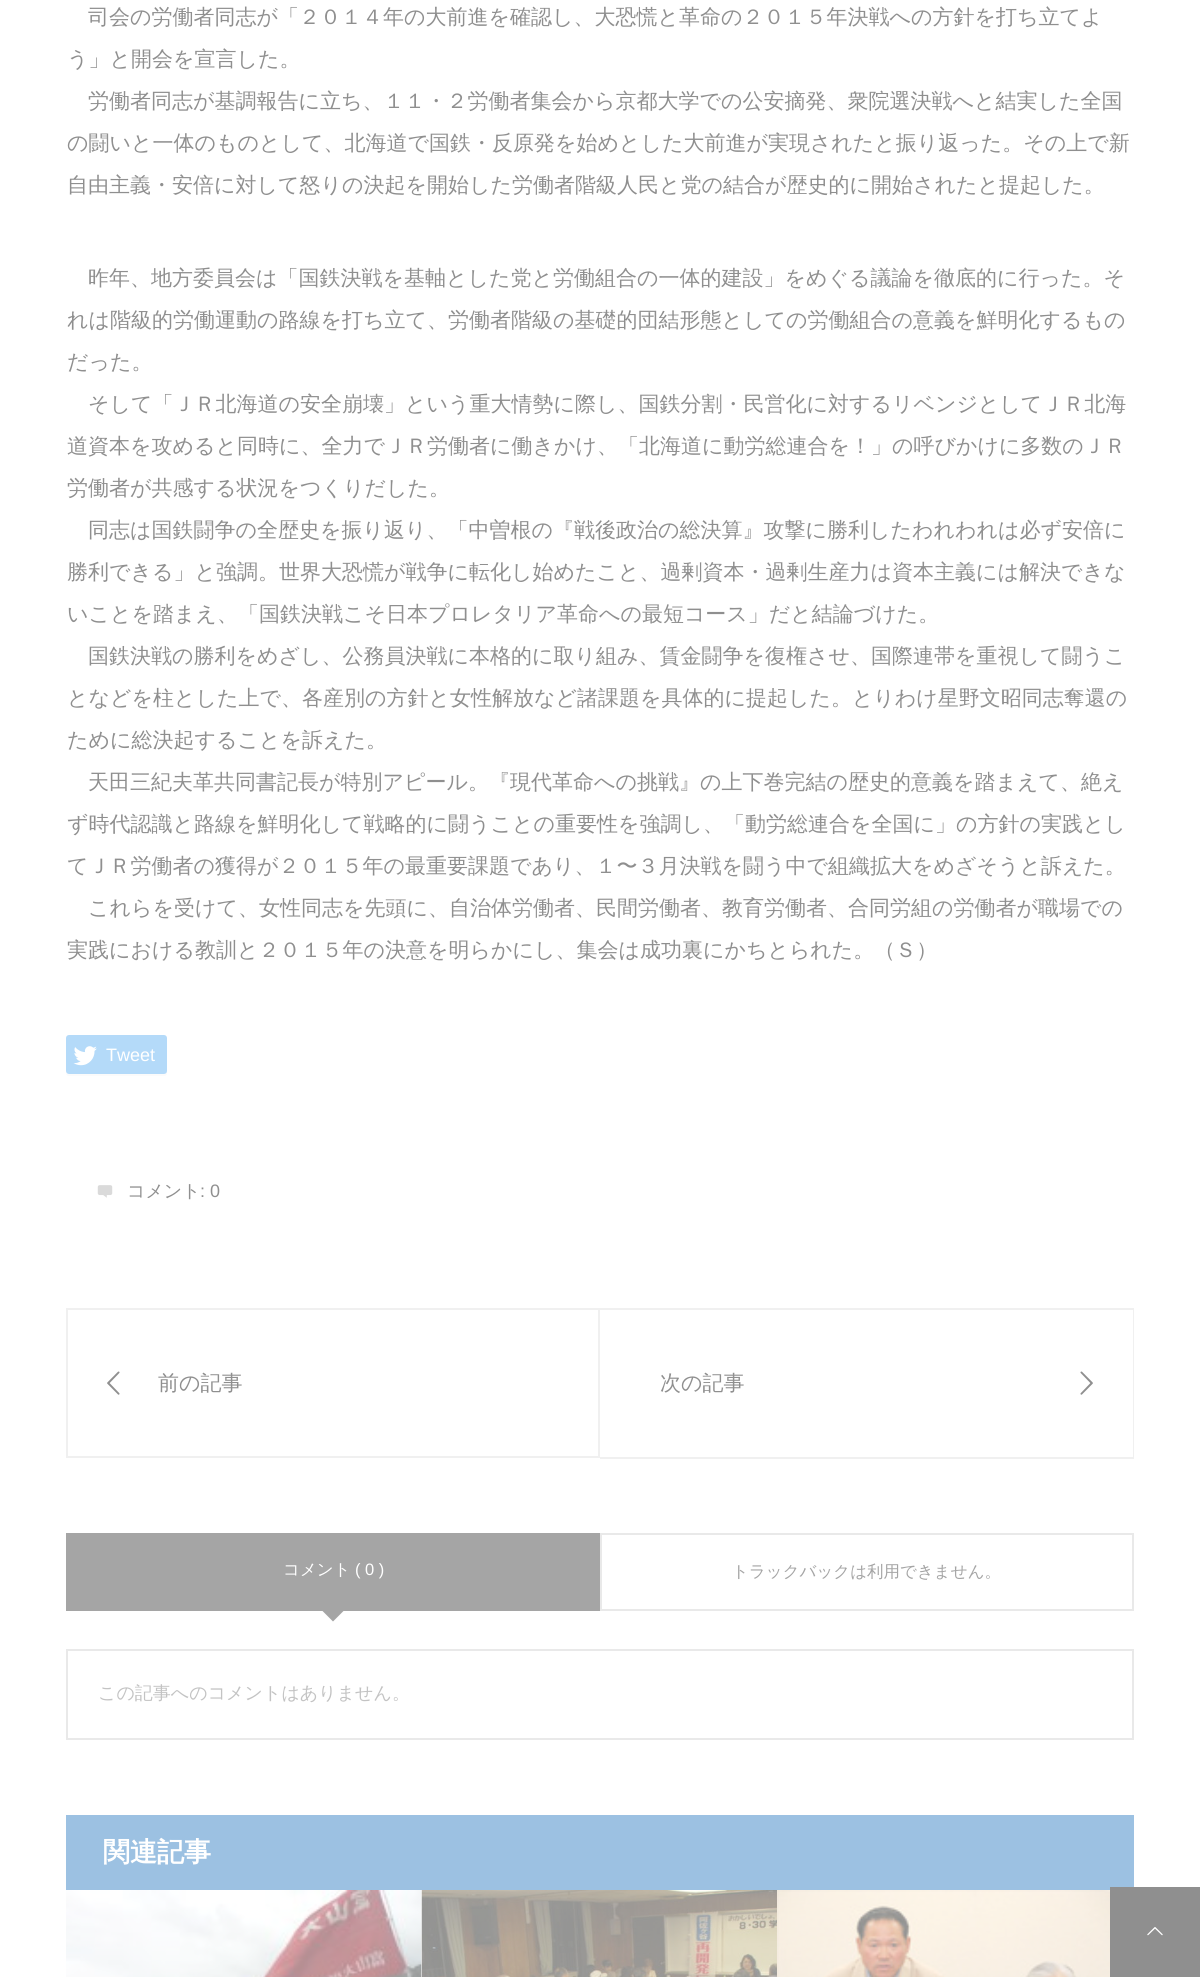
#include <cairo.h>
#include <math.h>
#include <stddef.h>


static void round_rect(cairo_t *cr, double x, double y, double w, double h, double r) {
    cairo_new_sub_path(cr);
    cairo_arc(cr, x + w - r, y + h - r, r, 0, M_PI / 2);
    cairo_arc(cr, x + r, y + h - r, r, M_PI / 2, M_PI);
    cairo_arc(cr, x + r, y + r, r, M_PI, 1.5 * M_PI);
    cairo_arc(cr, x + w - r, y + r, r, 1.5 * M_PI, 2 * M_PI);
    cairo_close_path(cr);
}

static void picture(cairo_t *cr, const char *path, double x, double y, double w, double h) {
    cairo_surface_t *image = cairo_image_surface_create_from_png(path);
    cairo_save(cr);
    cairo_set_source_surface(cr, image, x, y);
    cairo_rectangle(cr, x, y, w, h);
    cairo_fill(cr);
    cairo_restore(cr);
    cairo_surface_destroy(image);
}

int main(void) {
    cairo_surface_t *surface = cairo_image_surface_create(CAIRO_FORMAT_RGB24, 1200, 1977);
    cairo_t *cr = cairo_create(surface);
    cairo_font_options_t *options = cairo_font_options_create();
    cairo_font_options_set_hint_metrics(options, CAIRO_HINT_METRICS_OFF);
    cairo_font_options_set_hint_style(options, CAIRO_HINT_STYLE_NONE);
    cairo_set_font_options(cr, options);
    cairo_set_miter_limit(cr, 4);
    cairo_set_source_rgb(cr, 1, 1, 1);
    cairo_paint(cr);
    cairo_select_font_face(cr, "WenQuanYi Zen Hei Medium", CAIRO_FONT_SLANT_NORMAL, CAIRO_FONT_WEIGHT_NORMAL);
    cairo_set_font_size(cr, 21);
    cairo_set_source_rgb(cr, 0.561, 0.561, 0.561);
    cairo_move_to(cr, 88, 24);
    cairo_show_text(cr, "司会の労働者同志が「２０１４年の大前進を確認し、大恐慌と革命の２０１５年決戦への方針を打ち立てよ");
    cairo_move_to(cr, 67, 66);
    cairo_show_text(cr, "う」と開会を宣言した。");
    cairo_move_to(cr, 88, 108);
    cairo_show_text(cr, "労働者同志が基調報告に立ち、１１・２労働者集会から京都大学での公安摘発、衆院選決戦へと結実した全国");
    cairo_move_to(cr, 67, 150);
    cairo_show_text(cr, "の闘いと一体のものとして、北海道で国鉄・反原発を始めとした大前進が実現されたと振り返った。その上で新");
    cairo_move_to(cr, 67, 192);
    cairo_show_text(cr, "自由主義・安倍に対して怒りの決起を開始した労働者階級人民と党の結合が歴史的に開始されたと提起した。");
    cairo_move_to(cr, 88, 285);
    cairo_show_text(cr, "昨年、地方委員会は「国鉄決戦を基軸とした党と労働組合の一体的建設」をめぐる議論を徹底的に行った。そ");
    cairo_move_to(cr, 67, 327);
    cairo_show_text(cr, "れは階級的労働運動の路線を打ち立て、労働者階級の基礎的団結形態としての労働組合の意義を鮮明化するもの");
    cairo_move_to(cr, 67, 369);
    cairo_show_text(cr, "だった。");
    cairo_move_to(cr, 88, 411);
    cairo_show_text(cr, "そして「ＪＲ北海道の安全崩壊」という重大情勢に際し、国鉄分割・民営化に対するリベンジとしてＪＲ北海");
    cairo_move_to(cr, 67, 453);
    cairo_show_text(cr, "道資本を攻めると同時に、全力でＪＲ労働者に働きかけ、「北海道に動労総連合を！」の呼びかけに多数のＪＲ");
    cairo_move_to(cr, 67, 495);
    cairo_show_text(cr, "労働者が共感する状況をつくりだした。");
    cairo_move_to(cr, 88, 537);
    cairo_show_text(cr, "同志は国鉄闘争の全歴史を振り返り、「中曽根の『戦後政治の総決算』攻撃に勝利したわれわれは必ず安倍に");
    cairo_move_to(cr, 67, 579);
    cairo_show_text(cr, "勝利できる」と強調。世界大恐慌が戦争に転化し始めたこと、過剰資本・過剰生産力は資本主義には解決できな");
    cairo_move_to(cr, 67, 621);
    cairo_show_text(cr, "いことを踏まえ、「国鉄決戦こそ日本プロレタリア革命への最短コース」だと結論づけた。");
    cairo_move_to(cr, 88, 663);
    cairo_show_text(cr, "国鉄決戦の勝利をめざし、公務員決戦に本格的に取り組み、賃金闘争を復権させ、国際連帯を重視して闘うこ");
    cairo_move_to(cr, 67, 705);
    cairo_show_text(cr, "となどを柱とした上で、各産別の方針と女性解放など諸課題を具体的に提起した。とりわけ星野文昭同志奪還の");
    cairo_move_to(cr, 67, 747);
    cairo_show_text(cr, "ために総決起することを訴えた。");
    cairo_move_to(cr, 88, 789);
    cairo_show_text(cr, "天田三紀夫革共同書記長が特別アピール。『現代革命への挑戦』の上下巻完結の歴史的意義を踏まえて、絶え");
    cairo_move_to(cr, 67, 831);
    cairo_show_text(cr, "ず時代認識と路線を鮮明化して戦略的に闘うことの重要性を強調し、「動労総連合を全国に」の方針の実践とし");
    cairo_move_to(cr, 67, 873);
    cairo_show_text(cr, "てＪＲ労働者の獲得が２０１５年の最重要課題であり、１〜３月決戦を闘う中で組織拡大をめざそうと訴えた。");
    cairo_move_to(cr, 88, 915);
    cairo_show_text(cr, "これらを受けて、女性同志を先頭に、自治体労働者、民間労働者、教育労働者、合同労組の労働者が職場での");
    cairo_move_to(cr, 67, 957);
    cairo_show_text(cr, "実践における教訓と２０１５年の決意を明らかにし、集会は成功裏にかちとられた。（Ｓ）");
    cairo_set_source_rgb(cr, 0.984, 0.984, 0.984);
    cairo_new_path(cr);
    cairo_move_to(cr, 66, 1071);
    cairo_line_to(cr, 66, 1073);
    cairo_curve_to(cr, 66, 1075, 67, 1076, 69, 1076);
    cairo_line_to(cr, 164, 1076);
    cairo_curve_to(cr, 166, 1076, 167, 1075, 167, 1073);
    cairo_line_to(cr, 167, 1040);
    cairo_line_to(cr, 166, 1038);
    cairo_line_to(cr, 166, 1071);
    cairo_curve_to(cr, 166, 1073, 165, 1074, 164, 1074);
    cairo_line_to(cr, 69, 1074);
    cairo_curve_to(cr, 67, 1074, 66, 1073, 66, 1071);
    cairo_close_path(cr);
    cairo_fill(cr);
    cairo_set_source_rgb(cr, 0.706, 0.855, 0.973);
    round_rect(cr, 66, 1035, 101, 39, 3);
    cairo_fill(cr);
    picture(cr, "img1.png", 73, 1046, 24, 20);
    cairo_select_font_face(cr, "Liberation Sans", CAIRO_FONT_SLANT_NORMAL, CAIRO_FONT_WEIGHT_NORMAL);
    cairo_set_font_size(cr, 18);
    cairo_set_source_rgb(cr, 1, 1, 1);
    cairo_move_to(cr, 106, 1061);
    cairo_show_text(cr, "Tweet");
    picture(cr, "img2.png", 97, 1185, 16, 13);
    cairo_select_font_face(cr, "WenQuanYi Zen Hei Medium", CAIRO_FONT_SLANT_NORMAL, CAIRO_FONT_WEIGHT_NORMAL);
    cairo_set_source_rgb(cr, 0.561, 0.561, 0.561);
    cairo_move_to(cr, 127, 1197);
    cairo_show_text(cr, "コメント");
    cairo_select_font_face(cr, "Liberation Sans", CAIRO_FONT_SLANT_NORMAL, CAIRO_FONT_WEIGHT_NORMAL);
    cairo_move_to(cr, 200, 1197);
    cairo_show_text(cr, ": 0");
    cairo_rectangle(cr, 67, 1309, 532, 148);
    cairo_set_source_rgb(cr, 0.941, 0.941, 0.941);
    cairo_stroke(cr);
    picture(cr, "img3.png", 107, 1371, 13, 24);
    cairo_select_font_face(cr, "WenQuanYi Zen Hei Medium", CAIRO_FONT_SLANT_NORMAL, CAIRO_FONT_WEIGHT_NORMAL);
    cairo_set_font_size(cr, 21);
    cairo_set_source_rgb(cr, 0.561, 0.561, 0.561);
    cairo_move_to(cr, 158, 1390);
    cairo_show_text(cr, "前の記事");
    cairo_set_source_rgb(cr, 0.941, 0.941, 0.941);
    cairo_rectangle(cr, 600, 1308, 534, 2);
    cairo_fill(cr);
    cairo_rectangle(cr, 1133, 1308, 1, 150);
    cairo_fill(cr);
    cairo_rectangle(cr, 600, 1457, 534, 2);
    cairo_fill(cr);
    cairo_set_source_rgb(cr, 0.561, 0.561, 0.561);
    cairo_move_to(cr, 660, 1390);
    cairo_show_text(cr, "次の記事");
    picture(cr, "img4.png", 1080, 1371, 13, 24);
    cairo_set_source_rgb(cr, 0.647, 0.647, 0.647);
    cairo_rectangle(cr, 66, 1533, 534, 78);
    cairo_fill(cr);
    cairo_set_font_size(cr, 16.5);
    cairo_set_source_rgb(cr, 1, 1, 1);
    cairo_move_to(cr, 283, 1575);
    cairo_show_text(cr, "コメント");
    cairo_select_font_face(cr, "Liberation Sans", CAIRO_FONT_SLANT_NORMAL, CAIRO_FONT_WEIGHT_NORMAL);
    cairo_move_to(cr, 355, 1575);
    cairo_show_text(cr, "( 0 )");
    cairo_set_source_rgb(cr, 0.647, 0.647, 0.647);
    cairo_new_path(cr);
    cairo_move_to(cr, 318, 1606.5);
    cairo_line_to(cr, 348, 1606.5);
    cairo_line_to(cr, 333, 1621.5);
    cairo_close_path(cr);
    cairo_fill(cr);
    cairo_rectangle(cr, 601, 1534, 532, 76);
    cairo_set_source_rgb(cr, 0.914, 0.914, 0.914);
    cairo_stroke(cr);
    cairo_select_font_face(cr, "WenQuanYi Zen Hei Medium", CAIRO_FONT_SLANT_NORMAL, CAIRO_FONT_WEIGHT_NORMAL);
    cairo_set_source_rgb(cr, 0.647, 0.647, 0.647);
    cairo_move_to(cr, 732, 1577);
    cairo_show_text(cr, "トラックバックは利用できません。");
    cairo_rectangle(cr, 67, 1650, 1066, 89);
    cairo_set_source_rgb(cr, 0.914, 0.914, 0.914);
    cairo_stroke(cr);
    cairo_set_font_size(cr, 18);
    cairo_set_source_rgb(cr, 0.765, 0.765, 0.765);
    cairo_move_to(cr, 98, 1699);
    cairo_show_text(cr, "この記事へのコメントはありません。");
    cairo_set_source_rgb(cr, 0.612, 0.757, 0.886);
    cairo_rectangle(cr, 66, 1815, 1068, 75);
    cairo_fill(cr);
    cairo_select_font_face(cr, "WenQuanYi Zen Hei", CAIRO_FONT_SLANT_NORMAL, CAIRO_FONT_WEIGHT_BOLD);
    cairo_set_font_size(cr, 27);
    cairo_set_source_rgb(cr, 1, 1, 1);
    cairo_move_to(cr, 103, 1861);
    cairo_show_text(cr, "関連記事");
    picture(cr, "img5.png", 66, 1890, 356, 87);
    picture(cr, "img6.png", 421, 1890, 356, 87);
    picture(cr, "img7.png", 777, 1890, 333, 87);
    cairo_set_source_rgb(cr, 0.561, 0.561, 0.561);
    cairo_rectangle(cr, 1110, 1887, 90, 90);
    cairo_fill(cr);
    picture(cr, "img8.png", 1147, 1927, 16, 9);
    cairo_surface_write_to_png(surface, "page.png");
    cairo_font_options_destroy(options);
    cairo_destroy(cr);
    cairo_surface_destroy(surface);
    return 0;
}
